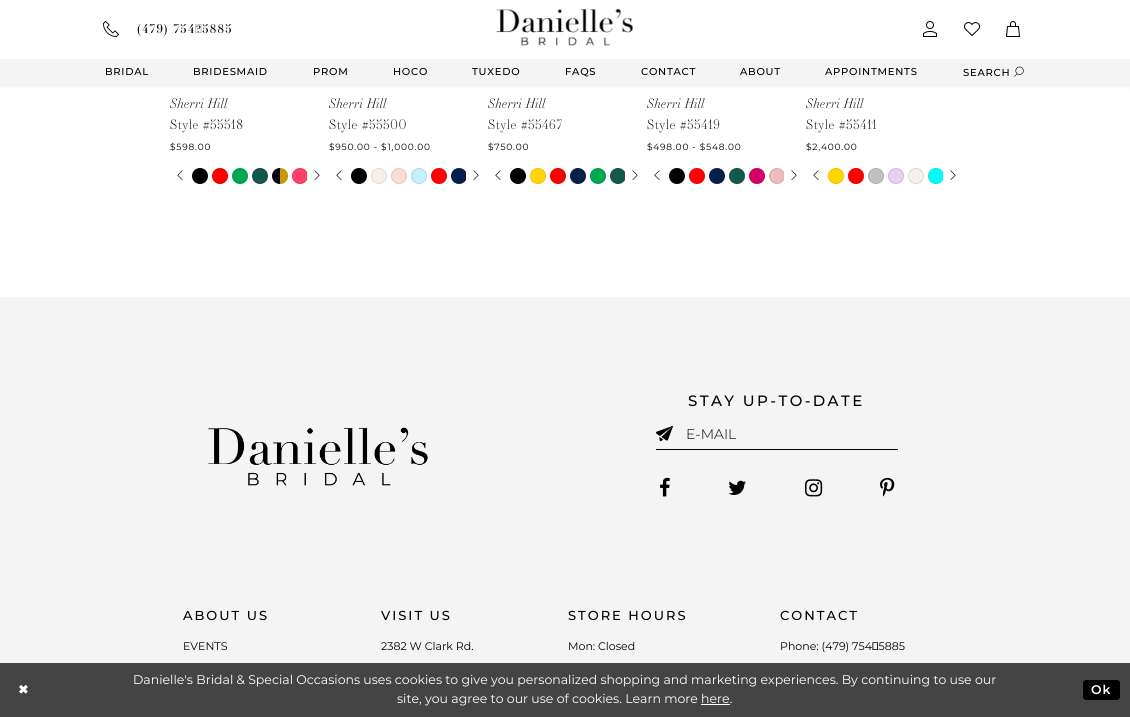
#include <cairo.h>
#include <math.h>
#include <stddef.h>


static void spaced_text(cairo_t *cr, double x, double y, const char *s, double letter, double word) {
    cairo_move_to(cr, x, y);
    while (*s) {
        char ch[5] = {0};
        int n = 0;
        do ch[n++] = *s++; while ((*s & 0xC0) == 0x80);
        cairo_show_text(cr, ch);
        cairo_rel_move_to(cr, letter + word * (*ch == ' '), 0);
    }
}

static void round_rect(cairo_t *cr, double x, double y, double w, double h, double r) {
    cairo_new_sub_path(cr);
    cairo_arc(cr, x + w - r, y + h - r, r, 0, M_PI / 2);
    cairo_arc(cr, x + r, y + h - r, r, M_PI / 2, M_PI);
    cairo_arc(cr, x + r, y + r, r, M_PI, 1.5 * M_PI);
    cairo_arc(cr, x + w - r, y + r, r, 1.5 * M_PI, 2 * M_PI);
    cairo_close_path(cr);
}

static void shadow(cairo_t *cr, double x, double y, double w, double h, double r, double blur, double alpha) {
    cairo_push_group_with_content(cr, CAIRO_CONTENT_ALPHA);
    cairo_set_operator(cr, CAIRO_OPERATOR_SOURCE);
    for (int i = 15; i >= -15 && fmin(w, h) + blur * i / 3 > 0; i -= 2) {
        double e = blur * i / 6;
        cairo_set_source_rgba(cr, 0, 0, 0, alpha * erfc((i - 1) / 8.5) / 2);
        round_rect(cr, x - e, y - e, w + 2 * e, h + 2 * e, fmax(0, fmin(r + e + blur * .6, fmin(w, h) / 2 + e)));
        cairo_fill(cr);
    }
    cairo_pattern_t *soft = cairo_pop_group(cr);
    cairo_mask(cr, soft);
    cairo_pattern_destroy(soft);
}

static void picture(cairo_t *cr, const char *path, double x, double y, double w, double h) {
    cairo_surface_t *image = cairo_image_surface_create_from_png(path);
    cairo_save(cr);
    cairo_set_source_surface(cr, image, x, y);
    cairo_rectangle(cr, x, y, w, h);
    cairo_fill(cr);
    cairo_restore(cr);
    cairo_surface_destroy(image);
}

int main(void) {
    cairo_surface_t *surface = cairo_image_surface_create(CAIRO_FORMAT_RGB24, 1130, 717);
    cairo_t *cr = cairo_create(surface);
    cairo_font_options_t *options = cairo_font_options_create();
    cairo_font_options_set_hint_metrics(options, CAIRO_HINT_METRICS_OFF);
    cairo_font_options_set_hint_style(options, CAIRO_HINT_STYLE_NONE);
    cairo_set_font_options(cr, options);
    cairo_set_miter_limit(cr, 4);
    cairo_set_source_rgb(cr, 1, 1, 1);
    cairo_paint(cr);
    cairo_set_source_rgb(cr, 0, 0, 0);
    shadow(cr, 0, 0, 1130, 86, 0, 2, 0.11);
    cairo_set_source_rgb(cr, 1, 1, 1);
    cairo_rectangle(cr, 0, 0, 1130, 59);
    cairo_fill(cr);
    picture(cr, "img1.png", 103, 21, 16, 16);
    cairo_select_font_face(cr, "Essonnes", CAIRO_FONT_SLANT_NORMAL, CAIRO_FONT_WEIGHT_NORMAL);
    cairo_set_font_size(cr, 12);
    cairo_set_source_rgb(cr, 0, 0, 0);
    spaced_text(cr, 137, 33, "(479) 754‑5885", 1.25, 0);
    picture(cr, "img2.png", 923, 21, 14, 16);
    picture(cr, "img3.png", 964, 22, 16, 14);
    picture(cr, "img4.png", 1006, 21, 14, 16);
    picture(cr, "img5.png", 496, 8, 137, 38);
    cairo_set_source_rgb(cr, 0.957, 0.957, 0.957);
    cairo_rectangle(cr, 0, 59, 1130, 27);
    cairo_fill(cr);
    cairo_select_font_face(cr, "Montserrat Medium", CAIRO_FONT_SLANT_NORMAL, CAIRO_FONT_WEIGHT_NORMAL);
    cairo_set_font_size(cr, 10);
    cairo_set_source_rgb(cr, 0, 0, 0);
    spaced_text(cr, 105, 75, "BRIDAL", 0.75, 0);
    spaced_text(cr, 193, 75, "BRIDESMAID", 0.75, 0);
    spaced_text(cr, 313, 75, "PROM", 0.75, 0);
    spaced_text(cr, 393, 75, "HOCO", 0.75, 0);
    spaced_text(cr, 472, 75, "TUXEDO", 0.75, 0);
    spaced_text(cr, 565, 75, "FAQS", 0.75, 0);
    spaced_text(cr, 641, 75, "CONTACT", 0.75, 0);
    spaced_text(cr, 740, 75, "ABOUT", 0.75, 0);
    spaced_text(cr, 825, 75, "APPOINTMENTS", 0.75, 0);
    spaced_text(cr, 963, 76, "SEARCH", 0.75, 0);
    picture(cr, "img6.png", 1014, 66, 10, 11);
    cairo_select_font_face(cr, "Essonnes Light", CAIRO_FONT_SLANT_ITALIC, CAIRO_FONT_WEIGHT_NORMAL);
    cairo_set_font_size(cr, 13);
    spaced_text(cr, 170, 108, "Sherri Hill", 0.25, 0);
    cairo_select_font_face(cr, "Essonnes Light", CAIRO_FONT_SLANT_NORMAL, CAIRO_FONT_WEIGHT_NORMAL);
    spaced_text(cr, 170, 129, "Style #55518", 0.5, 0);
    cairo_select_font_face(cr, "Montserrat", CAIRO_FONT_SLANT_NORMAL, CAIRO_FONT_WEIGHT_NORMAL);
    cairo_set_font_size(cr, 9);
    spaced_text(cr, 170, 150, "$598.00", 0.8, 0);
    picture(cr, "img7.png", 177, 170, 6, 10);
    cairo_arc(cr, 200, 176, 8, 0, 2 * M_PI);
    cairo_fill(cr);
    cairo_arc(cr, 200, 176, 7.5, 0, 2 * M_PI);
    cairo_set_source_rgba(cr, 0, 0, 0, 0.1);
    cairo_set_line_width(cr, 1);
    cairo_stroke(cr);
    cairo_set_source_rgb(cr, 1, 0, 0);
    cairo_arc(cr, 220, 176, 8, 0, 2 * M_PI);
    cairo_fill(cr);
    cairo_arc(cr, 220, 176, 7.5, 0, 2 * M_PI);
    cairo_set_source_rgba(cr, 0, 0, 0, 0.1);
    cairo_stroke(cr);
    cairo_set_source_rgb(cr, 0, 0.659, 0.318);
    cairo_arc(cr, 240, 176, 8, 0, 2 * M_PI);
    cairo_fill(cr);
    cairo_arc(cr, 240, 176, 7.5, 0, 2 * M_PI);
    cairo_set_source_rgba(cr, 0, 0, 0, 0.1);
    cairo_stroke(cr);
    cairo_set_source_rgb(cr, 0.078, 0.341, 0.302);
    cairo_arc(cr, 260, 176, 8, 0, 2 * M_PI);
    cairo_fill(cr);
    cairo_arc(cr, 260, 176, 7.5, 0, 2 * M_PI);
    cairo_set_source_rgba(cr, 0, 0, 0, 0.1);
    cairo_stroke(cr);
    cairo_set_source_rgb(cr, 0, 0, 0);
    cairo_new_path(cr);
    cairo_move_to(cr, 280, 168);
    cairo_line_to(cr, 280, 184);
    cairo_curve_to(cr, 275.5, 184, 272, 180.5, 272, 176);
    cairo_curve_to(cr, 272, 171.5, 275.5, 168, 280, 168);
    cairo_close_path(cr);
    cairo_fill(cr);
    cairo_set_source_rgb(cr, 0.8, 0.6, 0);
    cairo_new_path(cr);
    cairo_move_to(cr, 280, 168);
    cairo_curve_to(cr, 284.5, 168, 288, 171.5, 288, 176);
    cairo_curve_to(cr, 288, 180.5, 284.5, 184, 280, 184);
    cairo_close_path(cr);
    cairo_fill(cr);
    cairo_arc(cr, 280, 176, 7.5, 0, 2 * M_PI);
    cairo_set_source_rgba(cr, 0, 0, 0, 0.1);
    cairo_stroke(cr);
    cairo_save(cr);
    round_rect(cr, 292, 168, 16, 16, 8);
    cairo_clip(cr);
    cairo_set_source_rgb(cr, 1, 0.255, 0.396);
    cairo_new_path(cr);
    cairo_move_to(cr, 300, 168);
    cairo_line_to(cr, 307, 168);
    cairo_line_to(cr, 307, 184);
    cairo_line_to(cr, 300, 184);
    cairo_curve_to(cr, 295.5, 184, 292, 180.5, 292, 176);
    cairo_curve_to(cr, 292, 171.5, 295.5, 168, 300, 168);
    cairo_close_path(cr);
    cairo_fill(cr);
    cairo_restore(cr);
    cairo_save(cr);
    cairo_rectangle(cr, 190, 166, 117, 22);
    cairo_clip(cr);
    cairo_arc(cr, 300, 176, 7.5, 0, 2 * M_PI);
    cairo_stroke(cr);
    cairo_restore(cr);
    picture(cr, "img8.png", 314, 170, 6, 10);
    cairo_select_font_face(cr, "Essonnes Light", CAIRO_FONT_SLANT_ITALIC, CAIRO_FONT_WEIGHT_NORMAL);
    cairo_set_font_size(cr, 13);
    cairo_set_source_rgb(cr, 0, 0, 0);
    spaced_text(cr, 329, 108, "Sherri Hill", 0.25, 0);
    cairo_select_font_face(cr, "Essonnes Light", CAIRO_FONT_SLANT_NORMAL, CAIRO_FONT_WEIGHT_NORMAL);
    spaced_text(cr, 329, 129, "Style #55500", 0.5, 0);
    cairo_select_font_face(cr, "Montserrat", CAIRO_FONT_SLANT_NORMAL, CAIRO_FONT_WEIGHT_NORMAL);
    cairo_set_font_size(cr, 9);
    spaced_text(cr, 329, 150, "$950.00 - $1,000.00", 0.8, 0);
    picture(cr, "img7.png", 336, 170, 6, 10);
    cairo_arc(cr, 359, 176, 8, 0, 2 * M_PI);
    cairo_fill(cr);
    cairo_arc(cr, 359, 176, 7.5, 0, 2 * M_PI);
    cairo_set_source_rgba(cr, 0, 0, 0, 0.1);
    cairo_stroke(cr);
    cairo_set_source_rgb(cr, 0.961, 0.941, 0.929);
    cairo_arc(cr, 379, 176, 8, 0, 2 * M_PI);
    cairo_fill(cr);
    cairo_arc(cr, 379, 176, 7.5, 0, 2 * M_PI);
    cairo_set_source_rgba(cr, 0, 0, 0, 0.1);
    cairo_stroke(cr);
    cairo_set_source_rgb(cr, 0.976, 0.867, 0.824);
    cairo_arc(cr, 399, 176, 8, 0, 2 * M_PI);
    cairo_fill(cr);
    cairo_arc(cr, 399, 176, 7.5, 0, 2 * M_PI);
    cairo_set_source_rgba(cr, 0, 0, 0, 0.1);
    cairo_stroke(cr);
    cairo_set_source_rgb(cr, 0.761, 0.945, 0.976);
    cairo_arc(cr, 419, 176, 8, 0, 2 * M_PI);
    cairo_fill(cr);
    cairo_arc(cr, 419, 176, 7.5, 0, 2 * M_PI);
    cairo_set_source_rgba(cr, 0, 0, 0, 0.1);
    cairo_stroke(cr);
    cairo_set_source_rgb(cr, 1, 0, 0);
    cairo_arc(cr, 439, 176, 8, 0, 2 * M_PI);
    cairo_fill(cr);
    cairo_arc(cr, 439, 176, 7.5, 0, 2 * M_PI);
    cairo_set_source_rgba(cr, 0, 0, 0, 0.1);
    cairo_stroke(cr);
    cairo_save(cr);
    round_rect(cr, 451, 168, 16, 16, 8);
    cairo_clip(cr);
    cairo_set_source_rgb(cr, 0.035, 0.118, 0.29);
    cairo_new_path(cr);
    cairo_move_to(cr, 459, 168);
    cairo_line_to(cr, 466, 168);
    cairo_line_to(cr, 466, 184);
    cairo_line_to(cr, 459, 184);
    cairo_curve_to(cr, 454.5, 184, 451, 180.5, 451, 176);
    cairo_curve_to(cr, 451, 171.5, 454.5, 168, 459, 168);
    cairo_close_path(cr);
    cairo_fill(cr);
    cairo_restore(cr);
    cairo_save(cr);
    cairo_rectangle(cr, 349, 166, 117, 22);
    cairo_clip(cr);
    cairo_arc(cr, 459, 176, 7.5, 0, 2 * M_PI);
    cairo_stroke(cr);
    cairo_restore(cr);
    picture(cr, "img8.png", 473, 170, 6, 10);
    cairo_select_font_face(cr, "Essonnes Light", CAIRO_FONT_SLANT_ITALIC, CAIRO_FONT_WEIGHT_NORMAL);
    cairo_set_font_size(cr, 13);
    cairo_set_source_rgb(cr, 0, 0, 0);
    spaced_text(cr, 488, 108, "Sherri Hill", 0.25, 0);
    cairo_select_font_face(cr, "Essonnes Light", CAIRO_FONT_SLANT_NORMAL, CAIRO_FONT_WEIGHT_NORMAL);
    spaced_text(cr, 488, 129, "Style #55467", 0.5, 0);
    cairo_select_font_face(cr, "Montserrat", CAIRO_FONT_SLANT_NORMAL, CAIRO_FONT_WEIGHT_NORMAL);
    cairo_set_font_size(cr, 9);
    spaced_text(cr, 488, 150, "$750.00", 0.8, 0);
    picture(cr, "img7.png", 495, 170, 6, 10);
    cairo_arc(cr, 518, 176, 8, 0, 2 * M_PI);
    cairo_fill(cr);
    cairo_arc(cr, 518, 176, 7.5, 0, 2 * M_PI);
    cairo_set_source_rgba(cr, 0, 0, 0, 0.1);
    cairo_stroke(cr);
    cairo_set_source_rgb(cr, 1, 0.843, 0);
    cairo_arc(cr, 538, 176, 8, 0, 2 * M_PI);
    cairo_fill(cr);
    cairo_arc(cr, 538, 176, 7.5, 0, 2 * M_PI);
    cairo_set_source_rgba(cr, 0, 0, 0, 0.1);
    cairo_stroke(cr);
    cairo_set_source_rgb(cr, 1, 0, 0);
    cairo_arc(cr, 558, 176, 8, 0, 2 * M_PI);
    cairo_fill(cr);
    cairo_arc(cr, 558, 176, 7.5, 0, 2 * M_PI);
    cairo_set_source_rgba(cr, 0, 0, 0, 0.1);
    cairo_stroke(cr);
    cairo_set_source_rgb(cr, 0.035, 0.118, 0.29);
    cairo_arc(cr, 578, 176, 8, 0, 2 * M_PI);
    cairo_fill(cr);
    cairo_arc(cr, 578, 176, 7.5, 0, 2 * M_PI);
    cairo_set_source_rgba(cr, 0, 0, 0, 0.1);
    cairo_stroke(cr);
    cairo_set_source_rgb(cr, 0, 0.659, 0.318);
    cairo_arc(cr, 598, 176, 8, 0, 2 * M_PI);
    cairo_fill(cr);
    cairo_arc(cr, 598, 176, 7.5, 0, 2 * M_PI);
    cairo_set_source_rgba(cr, 0, 0, 0, 0.1);
    cairo_stroke(cr);
    cairo_save(cr);
    round_rect(cr, 610, 168, 16, 16, 8);
    cairo_clip(cr);
    cairo_set_source_rgb(cr, 0.078, 0.341, 0.302);
    cairo_new_path(cr);
    cairo_move_to(cr, 618, 168);
    cairo_line_to(cr, 625, 168);
    cairo_line_to(cr, 625, 184);
    cairo_line_to(cr, 618, 184);
    cairo_curve_to(cr, 613.5, 184, 610, 180.5, 610, 176);
    cairo_curve_to(cr, 610, 171.5, 613.5, 168, 618, 168);
    cairo_close_path(cr);
    cairo_fill(cr);
    cairo_restore(cr);
    cairo_save(cr);
    cairo_rectangle(cr, 508, 166, 117, 22);
    cairo_clip(cr);
    cairo_arc(cr, 618, 176, 7.5, 0, 2 * M_PI);
    cairo_stroke(cr);
    cairo_restore(cr);
    picture(cr, "img8.png", 632, 170, 6, 10);
    cairo_select_font_face(cr, "Essonnes Light", CAIRO_FONT_SLANT_ITALIC, CAIRO_FONT_WEIGHT_NORMAL);
    cairo_set_font_size(cr, 13);
    cairo_set_source_rgb(cr, 0, 0, 0);
    spaced_text(cr, 647, 108, "Sherri Hill", 0.25, 0);
    cairo_select_font_face(cr, "Essonnes Light", CAIRO_FONT_SLANT_NORMAL, CAIRO_FONT_WEIGHT_NORMAL);
    spaced_text(cr, 647, 129, "Style #55419", 0.5, 0);
    cairo_select_font_face(cr, "Montserrat", CAIRO_FONT_SLANT_NORMAL, CAIRO_FONT_WEIGHT_NORMAL);
    cairo_set_font_size(cr, 9);
    spaced_text(cr, 647, 150, "$498.00 - $548.00", 0.8, 0);
    picture(cr, "img7.png", 654, 170, 6, 10);
    cairo_arc(cr, 677, 176, 8, 0, 2 * M_PI);
    cairo_fill(cr);
    cairo_arc(cr, 677, 176, 7.5, 0, 2 * M_PI);
    cairo_set_source_rgba(cr, 0, 0, 0, 0.1);
    cairo_stroke(cr);
    cairo_set_source_rgb(cr, 1, 0, 0);
    cairo_arc(cr, 697, 176, 8, 0, 2 * M_PI);
    cairo_fill(cr);
    cairo_arc(cr, 697, 176, 7.5, 0, 2 * M_PI);
    cairo_set_source_rgba(cr, 0, 0, 0, 0.1);
    cairo_stroke(cr);
    cairo_set_source_rgb(cr, 0.035, 0.118, 0.29);
    cairo_arc(cr, 717, 176, 8, 0, 2 * M_PI);
    cairo_fill(cr);
    cairo_arc(cr, 717, 176, 7.5, 0, 2 * M_PI);
    cairo_set_source_rgba(cr, 0, 0, 0, 0.1);
    cairo_stroke(cr);
    cairo_set_source_rgb(cr, 0.078, 0.341, 0.302);
    cairo_arc(cr, 737, 176, 8, 0, 2 * M_PI);
    cairo_fill(cr);
    cairo_arc(cr, 737, 176, 7.5, 0, 2 * M_PI);
    cairo_set_source_rgba(cr, 0, 0, 0, 0.1);
    cairo_stroke(cr);
    cairo_set_source_rgb(cr, 0.835, 0, 0.424);
    cairo_arc(cr, 757, 176, 8, 0, 2 * M_PI);
    cairo_fill(cr);
    cairo_arc(cr, 757, 176, 7.5, 0, 2 * M_PI);
    cairo_set_source_rgba(cr, 0, 0, 0, 0.1);
    cairo_stroke(cr);
    cairo_save(cr);
    round_rect(cr, 769, 168, 16, 16, 8);
    cairo_clip(cr);
    cairo_set_source_rgb(cr, 0.929, 0.737, 0.722);
    cairo_new_path(cr);
    cairo_move_to(cr, 777, 168);
    cairo_line_to(cr, 784, 168);
    cairo_line_to(cr, 784, 184);
    cairo_line_to(cr, 777, 184);
    cairo_curve_to(cr, 772.5, 184, 769, 180.5, 769, 176);
    cairo_curve_to(cr, 769, 171.5, 772.5, 168, 777, 168);
    cairo_close_path(cr);
    cairo_fill(cr);
    cairo_restore(cr);
    cairo_save(cr);
    cairo_rectangle(cr, 667, 166, 117, 22);
    cairo_clip(cr);
    cairo_arc(cr, 777, 176, 7.5, 0, 2 * M_PI);
    cairo_stroke(cr);
    cairo_restore(cr);
    picture(cr, "img8.png", 791, 170, 6, 10);
    cairo_select_font_face(cr, "Essonnes Light", CAIRO_FONT_SLANT_ITALIC, CAIRO_FONT_WEIGHT_NORMAL);
    cairo_set_font_size(cr, 13);
    cairo_set_source_rgb(cr, 0, 0, 0);
    spaced_text(cr, 806, 108, "Sherri Hill", 0.25, 0);
    cairo_select_font_face(cr, "Essonnes Light", CAIRO_FONT_SLANT_NORMAL, CAIRO_FONT_WEIGHT_NORMAL);
    spaced_text(cr, 806, 129, "Style #55411", 0.5, 0);
    cairo_select_font_face(cr, "Montserrat", CAIRO_FONT_SLANT_NORMAL, CAIRO_FONT_WEIGHT_NORMAL);
    cairo_set_font_size(cr, 9);
    spaced_text(cr, 806, 150, "$2,400.00", 0.8, 0);
    picture(cr, "img7.png", 813, 170, 6, 10);
    cairo_set_source_rgb(cr, 1, 0.843, 0);
    cairo_arc(cr, 836, 176, 8, 0, 2 * M_PI);
    cairo_fill(cr);
    cairo_arc(cr, 836, 176, 7.5, 0, 2 * M_PI);
    cairo_set_source_rgba(cr, 0, 0, 0, 0.1);
    cairo_stroke(cr);
    cairo_set_source_rgb(cr, 1, 0, 0);
    cairo_arc(cr, 856, 176, 8, 0, 2 * M_PI);
    cairo_fill(cr);
    cairo_arc(cr, 856, 176, 7.5, 0, 2 * M_PI);
    cairo_set_source_rgba(cr, 0, 0, 0, 0.1);
    cairo_stroke(cr);
    cairo_set_source_rgb(cr, 0.753, 0.753, 0.753);
    cairo_arc(cr, 876, 176, 8, 0, 2 * M_PI);
    cairo_fill(cr);
    cairo_arc(cr, 876, 176, 7.5, 0, 2 * M_PI);
    cairo_set_source_rgba(cr, 0, 0, 0, 0.1);
    cairo_stroke(cr);
    cairo_set_source_rgb(cr, 0.906, 0.808, 0.949);
    cairo_arc(cr, 896, 176, 8, 0, 2 * M_PI);
    cairo_fill(cr);
    cairo_arc(cr, 896, 176, 7.5, 0, 2 * M_PI);
    cairo_set_source_rgba(cr, 0, 0, 0, 0.1);
    cairo_stroke(cr);
    cairo_set_source_rgb(cr, 0.961, 0.941, 0.929);
    cairo_arc(cr, 916, 176, 8, 0, 2 * M_PI);
    cairo_fill(cr);
    cairo_arc(cr, 916, 176, 7.5, 0, 2 * M_PI);
    cairo_set_source_rgba(cr, 0, 0, 0, 0.1);
    cairo_stroke(cr);
    cairo_save(cr);
    round_rect(cr, 928, 168, 16, 16, 8);
    cairo_clip(cr);
    cairo_set_source_rgb(cr, 0, 1, 1);
    cairo_new_path(cr);
    cairo_move_to(cr, 936, 168);
    cairo_line_to(cr, 943, 168);
    cairo_line_to(cr, 943, 184);
    cairo_line_to(cr, 936, 184);
    cairo_curve_to(cr, 931.5, 184, 928, 180.5, 928, 176);
    cairo_curve_to(cr, 928, 171.5, 931.5, 168, 936, 168);
    cairo_close_path(cr);
    cairo_fill(cr);
    cairo_restore(cr);
    cairo_save(cr);
    cairo_rectangle(cr, 826, 166, 117, 22);
    cairo_clip(cr);
    cairo_arc(cr, 936, 176, 7.5, 0, 2 * M_PI);
    cairo_stroke(cr);
    cairo_restore(cr);
    picture(cr, "img8.png", 950, 170, 6, 10);
    cairo_set_source_rgb(cr, 0.957, 0.957, 0.957);
    cairo_rectangle(cr, 0, 297, 1130, 366);
    cairo_fill(cr);
    cairo_select_font_face(cr, "Montserrat Medium", CAIRO_FONT_SLANT_NORMAL, CAIRO_FONT_WEIGHT_NORMAL);
    cairo_set_font_size(cr, 15);
    cairo_set_source_rgb(cr, 0, 0, 0);
    spaced_text(cr, 688, 406, "STAY UP-TO-DATE", 2.4, 0);
    picture(cr, "img9.png", 656, 425, 17, 17);
    cairo_rectangle(cr, 656, 449, 242, 1);
    cairo_fill(cr);
    cairo_select_font_face(cr, "Montserrat Light", CAIRO_FONT_SLANT_NORMAL, CAIRO_FONT_WEIGHT_NORMAL);
    cairo_set_font_size(cr, 14);
    cairo_move_to(cr, 686, 439);
    cairo_show_text(cr, "E-MAIL");
    picture(cr, "img10.png", 660, 477, 10, 20);
    picture(cr, "img11.png", 728, 480, 18, 15);
    picture(cr, "img12.png", 805, 479, 18, 18);
    picture(cr, "img13.png", 880, 477, 15, 20);
    picture(cr, "img14.png", 208, 427, 220, 59);
    cairo_select_font_face(cr, "Montserrat Medium", CAIRO_FONT_SLANT_NORMAL, CAIRO_FONT_WEIGHT_NORMAL);
    cairo_set_font_size(cr, 13);
    spaced_text(cr, 183, 620, "ABOUT US", 2, 0);
    cairo_select_font_face(cr, "Montserrat", CAIRO_FONT_SLANT_NORMAL, CAIRO_FONT_WEIGHT_NORMAL);
    cairo_set_font_size(cr, 11);
    cairo_move_to(cr, 183, 650);
    cairo_show_text(cr, "EVENTS");
    cairo_select_font_face(cr, "Montserrat Medium", CAIRO_FONT_SLANT_NORMAL, CAIRO_FONT_WEIGHT_NORMAL);
    cairo_set_font_size(cr, 13);
    spaced_text(cr, 381, 620, "VISIT US", 2, 0);
    cairo_select_font_face(cr, "Montserrat", CAIRO_FONT_SLANT_NORMAL, CAIRO_FONT_WEIGHT_NORMAL);
    cairo_set_font_size(cr, 11);
    cairo_move_to(cr, 381, 650);
    cairo_show_text(cr, "2382 W Clark Rd.");
    cairo_select_font_face(cr, "Montserrat Medium", CAIRO_FONT_SLANT_NORMAL, CAIRO_FONT_WEIGHT_NORMAL);
    cairo_set_font_size(cr, 13);
    spaced_text(cr, 568, 620, "STORE HOURS", 2, 0);
    cairo_select_font_face(cr, "Montserrat", CAIRO_FONT_SLANT_NORMAL, CAIRO_FONT_WEIGHT_NORMAL);
    cairo_set_font_size(cr, 11);
    cairo_move_to(cr, 568, 650);
    cairo_show_text(cr, "Mon: Closed");
    cairo_select_font_face(cr, "Montserrat Medium", CAIRO_FONT_SLANT_NORMAL, CAIRO_FONT_WEIGHT_NORMAL);
    cairo_set_font_size(cr, 13);
    spaced_text(cr, 780, 620, "CONTACT", 2, 0);
    cairo_select_font_face(cr, "Montserrat", CAIRO_FONT_SLANT_NORMAL, CAIRO_FONT_WEIGHT_NORMAL);
    cairo_set_font_size(cr, 11);
    cairo_move_to(cr, 780, 650);
    cairo_show_text(cr, "Phone: (479) 754‑5885");
    cairo_set_source_rgb(cr, 0.267, 0.267, 0.267);
    cairo_rectangle(cr, 0, 663, 1130, 54);
    cairo_fill(cr);
    cairo_select_font_face(cr, "DejaVu Sans", CAIRO_FONT_SLANT_NORMAL, CAIRO_FONT_WEIGHT_BOLD);
    cairo_set_font_size(cr, 12.5);
    cairo_set_source_rgb(cr, 1, 1, 1);
    spaced_text(cr, 18, 694, "✖", 1, 0);
    cairo_select_font_face(cr, "Montserrat", CAIRO_FONT_SLANT_NORMAL, CAIRO_FONT_WEIGHT_NORMAL);
    cairo_move_to(cr, 133, 684);
    cairo_show_text(cr, "Danielle's Bridal & Special Occasions uses cookies to give you personalized shopping and marketing experiences. By continuing to use our");
    cairo_move_to(cr, 397, 703);
    cairo_show_text(cr, "site, you agree to our use of cookies. Learn more here.");
    cairo_rectangle(cr, 701, 704, 29, 1);
    cairo_fill(cr);
    cairo_set_source_rgb(cr, 0, 0, 0);
    round_rect(cr, 1083, 680, 37, 20, 3);
    cairo_fill(cr);
    cairo_select_font_face(cr, "Montserrat SemiBold", CAIRO_FONT_SLANT_NORMAL, CAIRO_FONT_WEIGHT_NORMAL);
    cairo_set_source_rgb(cr, 1, 1, 1);
    spaced_text(cr, 1091, 694, "Ok", 1, 0);
    cairo_surface_write_to_png(surface, "page.png");
    cairo_font_options_destroy(options);
    cairo_destroy(cr);
    cairo_surface_destroy(surface);
    return 0;
}
